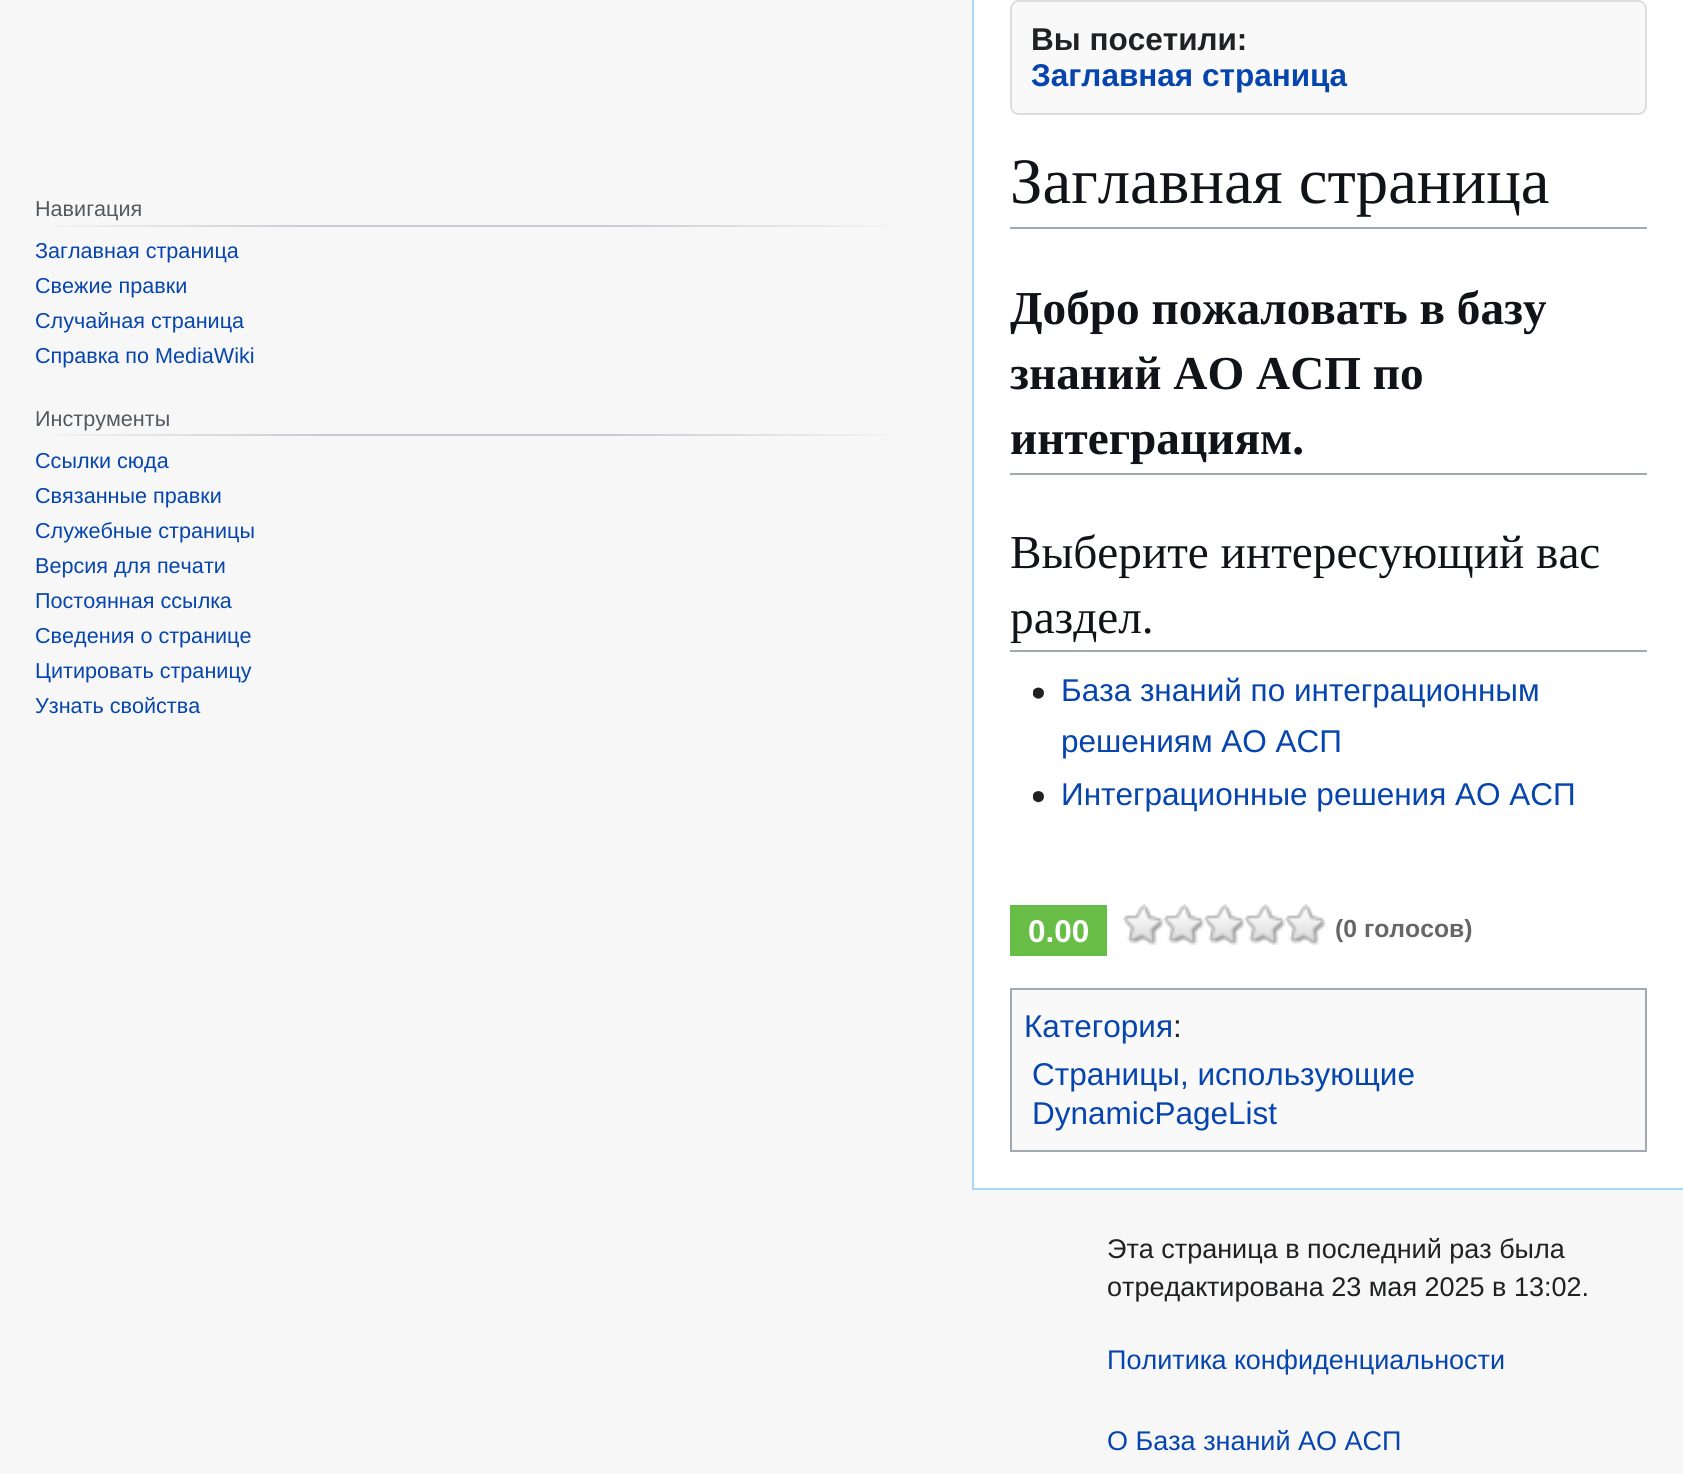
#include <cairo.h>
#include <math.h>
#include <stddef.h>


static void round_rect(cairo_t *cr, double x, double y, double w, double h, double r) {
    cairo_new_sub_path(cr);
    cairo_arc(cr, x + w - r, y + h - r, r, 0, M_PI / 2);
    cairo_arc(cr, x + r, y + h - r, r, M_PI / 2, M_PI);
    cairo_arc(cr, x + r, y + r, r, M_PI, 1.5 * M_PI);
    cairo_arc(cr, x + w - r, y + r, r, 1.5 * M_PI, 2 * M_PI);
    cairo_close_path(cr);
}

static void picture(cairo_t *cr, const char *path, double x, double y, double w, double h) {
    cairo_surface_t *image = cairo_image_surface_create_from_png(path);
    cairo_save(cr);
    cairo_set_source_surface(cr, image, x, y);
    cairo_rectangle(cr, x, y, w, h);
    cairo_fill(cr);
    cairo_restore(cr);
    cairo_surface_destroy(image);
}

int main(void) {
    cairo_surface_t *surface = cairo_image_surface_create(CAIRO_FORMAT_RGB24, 1683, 1474);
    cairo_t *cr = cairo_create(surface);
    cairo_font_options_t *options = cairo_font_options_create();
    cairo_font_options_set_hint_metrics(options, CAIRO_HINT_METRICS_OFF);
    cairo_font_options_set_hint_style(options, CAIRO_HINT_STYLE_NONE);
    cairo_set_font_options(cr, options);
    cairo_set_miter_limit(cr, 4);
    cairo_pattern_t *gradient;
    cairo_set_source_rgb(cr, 0.965, 0.965, 0.965);
    cairo_paint(cr);
    gradient = cairo_pattern_create_linear(34, 226, 905, 226);
    cairo_pattern_add_color_stop_rgba(gradient, 0, 0.965, 0.965, 0.965, 1);
    cairo_pattern_add_color_stop_rgba(gradient, 0.33, 0.784, 0.8, 0.82, 1);
    cairo_pattern_add_color_stop_rgba(gradient, 0.66, 0.784, 0.8, 0.82, 1);
    cairo_pattern_add_color_stop_rgba(gradient, 1, 0.965, 0.965, 0.965, 1);
    cairo_set_source(cr, gradient);
    cairo_pattern_destroy(gradient);
    cairo_rectangle(cr, 50, 225, 839, 2);
    cairo_fill(cr);
    cairo_select_font_face(cr, "Liberation Sans", CAIRO_FONT_SLANT_NORMAL, CAIRO_FONT_WEIGHT_NORMAL);
    cairo_set_font_size(cr, 21.6);
    cairo_set_source_rgb(cr, 0.329, 0.349, 0.365);
    cairo_move_to(cr, 35, 216);
    cairo_show_text(cr, "Навигация");
    cairo_set_source_rgb(cr, 0.024, 0.271, 0.678);
    cairo_move_to(cr, 35, 258);
    cairo_show_text(cr, "Заглавная страница");
    cairo_move_to(cr, 35, 293);
    cairo_show_text(cr, "Свежие правки");
    cairo_move_to(cr, 35, 328);
    cairo_show_text(cr, "Случайная страница");
    cairo_move_to(cr, 35, 363);
    cairo_show_text(cr, "Справка по MediaWiki");
    gradient = cairo_pattern_create_linear(34, 435, 905, 435);
    cairo_pattern_add_color_stop_rgba(gradient, 0, 0.965, 0.965, 0.965, 1);
    cairo_pattern_add_color_stop_rgba(gradient, 0.33, 0.784, 0.8, 0.82, 1);
    cairo_pattern_add_color_stop_rgba(gradient, 0.66, 0.784, 0.8, 0.82, 1);
    cairo_pattern_add_color_stop_rgba(gradient, 1, 0.965, 0.965, 0.965, 1);
    cairo_set_source(cr, gradient);
    cairo_pattern_destroy(gradient);
    cairo_rectangle(cr, 50, 434, 839, 2);
    cairo_fill(cr);
    cairo_set_source_rgb(cr, 0.329, 0.349, 0.365);
    cairo_move_to(cr, 35, 426);
    cairo_show_text(cr, "Инструменты");
    cairo_set_source_rgb(cr, 0.024, 0.271, 0.678);
    cairo_move_to(cr, 35, 468);
    cairo_show_text(cr, "Ссылки сюда");
    cairo_move_to(cr, 35, 503);
    cairo_show_text(cr, "Связанные правки");
    cairo_move_to(cr, 35, 538);
    cairo_show_text(cr, "Служебные страницы");
    cairo_move_to(cr, 35, 573);
    cairo_show_text(cr, "Версия для печати");
    cairo_move_to(cr, 35, 608);
    cairo_show_text(cr, "Постоянная ссылка");
    cairo_move_to(cr, 35, 643);
    cairo_show_text(cr, "Сведения о странице");
    cairo_move_to(cr, 35, 678);
    cairo_show_text(cr, "Цитировать страницу");
    cairo_move_to(cr, 35, 713);
    cairo_show_text(cr, "Узнать свойства");
    cairo_set_source_rgb(cr, 1, 1, 1);
    cairo_rectangle(cr, 974, 0, 709, 1188);
    cairo_fill(cr);
    cairo_set_source_rgb(cr, 0.655, 0.843, 0.976);
    cairo_rectangle(cr, 972, 1188, 711, 2);
    cairo_fill(cr);
    cairo_rectangle(cr, 972, 0, 2, 1190);
    cairo_fill(cr);
    cairo_set_source_rgb(cr, 0.976, 0.976, 0.976);
    round_rect(cr, 1011, 1, 635, 113, 8);
    cairo_fill_preserve(cr);
    cairo_set_source_rgb(cr, 0.867, 0.867, 0.867);
    cairo_stroke(cr);
    cairo_select_font_face(cr, "Liberation Sans", CAIRO_FONT_SLANT_NORMAL, CAIRO_FONT_WEIGHT_BOLD);
    cairo_set_font_size(cr, 31.5);
    cairo_set_source_rgb(cr, 0.125, 0.129, 0.133);
    cairo_move_to(cr, 1031, 50);
    cairo_show_text(cr, "Вы посетили:");
    cairo_set_source_rgb(cr, 0.024, 0.271, 0.678);
    cairo_move_to(cr, 1031, 86);
    cairo_show_text(cr, "Заглавная страница");
    cairo_set_source_rgb(cr, 0.635, 0.663, 0.694);
    cairo_rectangle(cr, 1010, 227, 637, 2);
    cairo_fill(cr);
    cairo_select_font_face(cr, "Liberation Serif", CAIRO_FONT_SLANT_NORMAL, CAIRO_FONT_WEIGHT_NORMAL);
    cairo_set_font_size(cr, 64.75);
    cairo_set_source_rgb(cr, 0.063, 0.078, 0.094);
    cairo_move_to(cr, 1010, 203);
    cairo_show_text(cr, "Заглавная страница");
    cairo_set_source_rgb(cr, 0.635, 0.663, 0.694);
    cairo_rectangle(cr, 1010, 473, 637, 2);
    cairo_fill(cr);
    cairo_select_font_face(cr, "Liberation Serif", CAIRO_FONT_SLANT_NORMAL, CAIRO_FONT_WEIGHT_BOLD);
    cairo_set_font_size(cr, 47.25);
    cairo_set_source_rgb(cr, 0.063, 0.078, 0.094);
    cairo_move_to(cr, 1010, 324);
    cairo_show_text(cr, "Добро пожаловать в базу");
    cairo_move_to(cr, 1010, 389);
    cairo_show_text(cr, "знаний АО АСП по");
    cairo_move_to(cr, 1010, 454);
    cairo_show_text(cr, "интеграциям.");
    cairo_set_source_rgb(cr, 0.635, 0.663, 0.694);
    cairo_rectangle(cr, 1010, 650, 637, 2);
    cairo_fill(cr);
    cairo_select_font_face(cr, "Liberation Serif", CAIRO_FONT_SLANT_NORMAL, CAIRO_FONT_WEIGHT_NORMAL);
    cairo_set_source_rgb(cr, 0.063, 0.078, 0.094);
    cairo_move_to(cr, 1010, 568);
    cairo_show_text(cr, "Выберите интересующий вас");
    cairo_move_to(cr, 1010, 633);
    cairo_show_text(cr, "раздел.");
    picture(cr, "img1.png", 1033, 687, 11, 12);
    cairo_select_font_face(cr, "Liberation Sans", CAIRO_FONT_SLANT_NORMAL, CAIRO_FONT_WEIGHT_NORMAL);
    cairo_set_font_size(cr, 31.5);
    cairo_set_source_rgb(cr, 0.024, 0.271, 0.678);
    cairo_move_to(cr, 1061, 701);
    cairo_show_text(cr, "База знаний по интеграционным");
    cairo_move_to(cr, 1061, 752);
    cairo_show_text(cr, "решениям АО АСП");
    picture(cr, "img2.png", 1033, 791, 11, 12);
    cairo_move_to(cr, 1061, 805);
    cairo_show_text(cr, "Интеграционные решения АО АСП");
    cairo_set_source_rgb(cr, 0.408, 0.741, 0.275);
    cairo_rectangle(cr, 1010, 905, 97, 51);
    cairo_fill(cr);
    cairo_select_font_face(cr, "Liberation Sans", CAIRO_FONT_SLANT_NORMAL, CAIRO_FONT_WEIGHT_BOLD);
    cairo_set_source_rgb(cr, 1, 1, 1);
    cairo_move_to(cr, 1028, 942);
    cairo_show_text(cr, "0.00");
    picture(cr, "img3.png", 1122, 904, 42, 41);
    picture(cr, "img4.png", 1163, 904, 41, 41);
    picture(cr, "img5.png", 1203, 904, 42, 41);
    picture(cr, "img4.png", 1244, 904, 41, 41);
    picture(cr, "img6.png", 1284, 904, 42, 41);
    cairo_set_font_size(cr, 24.75);
    cairo_set_source_rgb(cr, 0.4, 0.4, 0.4);
    cairo_move_to(cr, 1335, 937);
    cairo_show_text(cr, "(0 голосов)");
    cairo_set_source_rgb(cr, 0.973, 0.976, 0.98);
    cairo_rectangle(cr, 1011, 989, 635, 162);
    cairo_fill_preserve(cr);
    cairo_set_source_rgb(cr, 0.635, 0.663, 0.694);
    cairo_stroke(cr);
    cairo_select_font_face(cr, "Liberation Sans", CAIRO_FONT_SLANT_NORMAL, CAIRO_FONT_WEIGHT_NORMAL);
    cairo_set_font_size(cr, 31.5);
    cairo_set_source_rgb(cr, 0.024, 0.271, 0.678);
    cairo_move_to(cr, 1024, 1037);
    cairo_show_text(cr, "Категория");
    cairo_set_source_rgb(cr, 0.125, 0.129, 0.133);
    cairo_move_to(cr, 1173, 1037);
    cairo_show_text(cr, ":");
    cairo_set_source_rgb(cr, 0.024, 0.271, 0.678);
    cairo_move_to(cr, 1032, 1085);
    cairo_show_text(cr, "Страницы, использующие");
    cairo_move_to(cr, 1032, 1124);
    cairo_show_text(cr, "DynamicPageList");
    cairo_set_font_size(cr, 27);
    cairo_set_source_rgb(cr, 0.125, 0.129, 0.133);
    cairo_move_to(cr, 1107, 1258);
    cairo_show_text(cr, "Эта страница в последний раз была");
    cairo_move_to(cr, 1107, 1296);
    cairo_show_text(cr, "отредактирована 23 мая 2025 в 13:02.");
    cairo_set_source_rgb(cr, 0.024, 0.271, 0.678);
    cairo_move_to(cr, 1107, 1369);
    cairo_show_text(cr, "Политика конфиденциальности");
    cairo_move_to(cr, 1107, 1450);
    cairo_show_text(cr, "О База знаний АО АСП");
    cairo_surface_write_to_png(surface, "page.png");
    cairo_font_options_destroy(options);
    cairo_destroy(cr);
    cairo_surface_destroy(surface);
    return 0;
}
